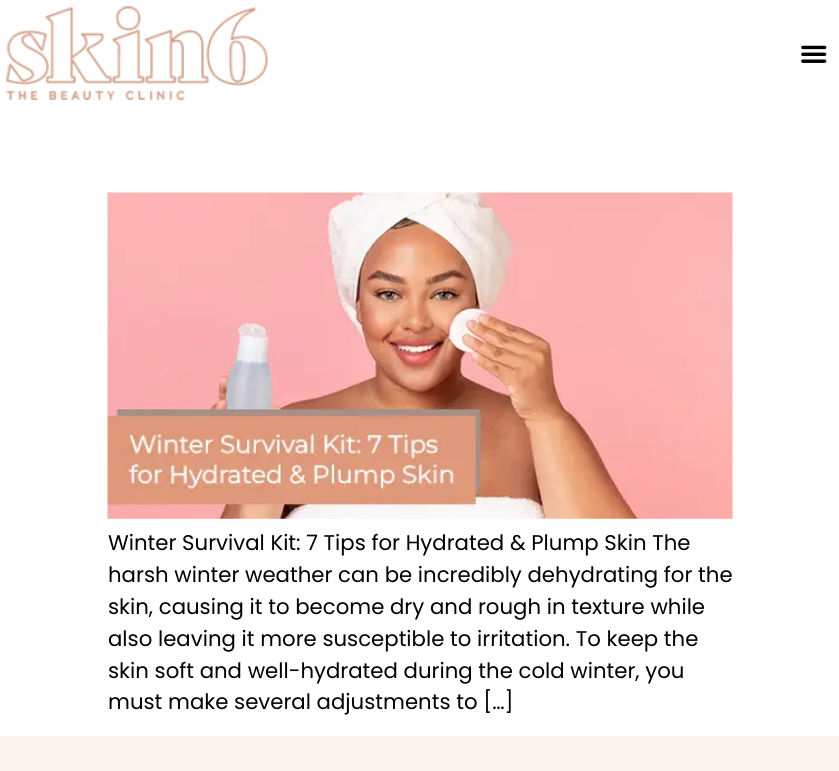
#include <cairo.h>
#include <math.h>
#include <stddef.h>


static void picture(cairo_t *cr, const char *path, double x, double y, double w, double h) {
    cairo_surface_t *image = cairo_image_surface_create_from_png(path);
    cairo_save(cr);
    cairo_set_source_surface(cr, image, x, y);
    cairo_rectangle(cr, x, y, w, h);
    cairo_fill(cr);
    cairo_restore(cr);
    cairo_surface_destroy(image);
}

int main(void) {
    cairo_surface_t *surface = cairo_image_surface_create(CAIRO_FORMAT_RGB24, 839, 771);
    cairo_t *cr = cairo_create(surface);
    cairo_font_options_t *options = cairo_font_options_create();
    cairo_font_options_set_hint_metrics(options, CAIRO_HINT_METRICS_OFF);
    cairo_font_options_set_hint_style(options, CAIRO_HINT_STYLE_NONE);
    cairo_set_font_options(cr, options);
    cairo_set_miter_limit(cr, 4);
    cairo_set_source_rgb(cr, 1, 1, 1);
    cairo_paint(cr);
    picture(cr, "img1.png", 6, 6, 262, 94);
    picture(cr, "img2.png", 801, 45, 26, 18);
    picture(cr, "img3.png", 107, 192, 626, 327);
    cairo_select_font_face(cr, "Poppins", CAIRO_FONT_SLANT_NORMAL, CAIRO_FONT_WEIGHT_NORMAL);
    cairo_set_font_size(cr, 21.25);
    cairo_set_source_rgb(cr, 0, 0, 0);
    cairo_move_to(cr, 108, 550);
    cairo_show_text(cr, "Winter Survival Kit: 7 Tips for Hydrated & Plump Skin The");
    cairo_move_to(cr, 108, 582);
    cairo_show_text(cr, "harsh winter weather can be incredibly dehydrating for the");
    cairo_move_to(cr, 108, 614);
    cairo_show_text(cr, "skin, causing it to become dry and rough in texture while");
    cairo_move_to(cr, 108, 646);
    cairo_show_text(cr, "also leaving it more susceptible to irritation. To keep the");
    cairo_move_to(cr, 108, 678);
    cairo_show_text(cr, "skin soft and well-hydrated during the cold winter, you");
    cairo_move_to(cr, 108, 709);
    cairo_show_text(cr, "must make several adjustments to […]");
    cairo_set_source_rgb(cr, 0.976, 0.957, 0.941);
    cairo_rectangle(cr, 0, 736, 839, 35);
    cairo_fill(cr);
    cairo_surface_write_to_png(surface, "page.png");
    cairo_font_options_destroy(options);
    cairo_destroy(cr);
    cairo_surface_destroy(surface);
    return 0;
}
